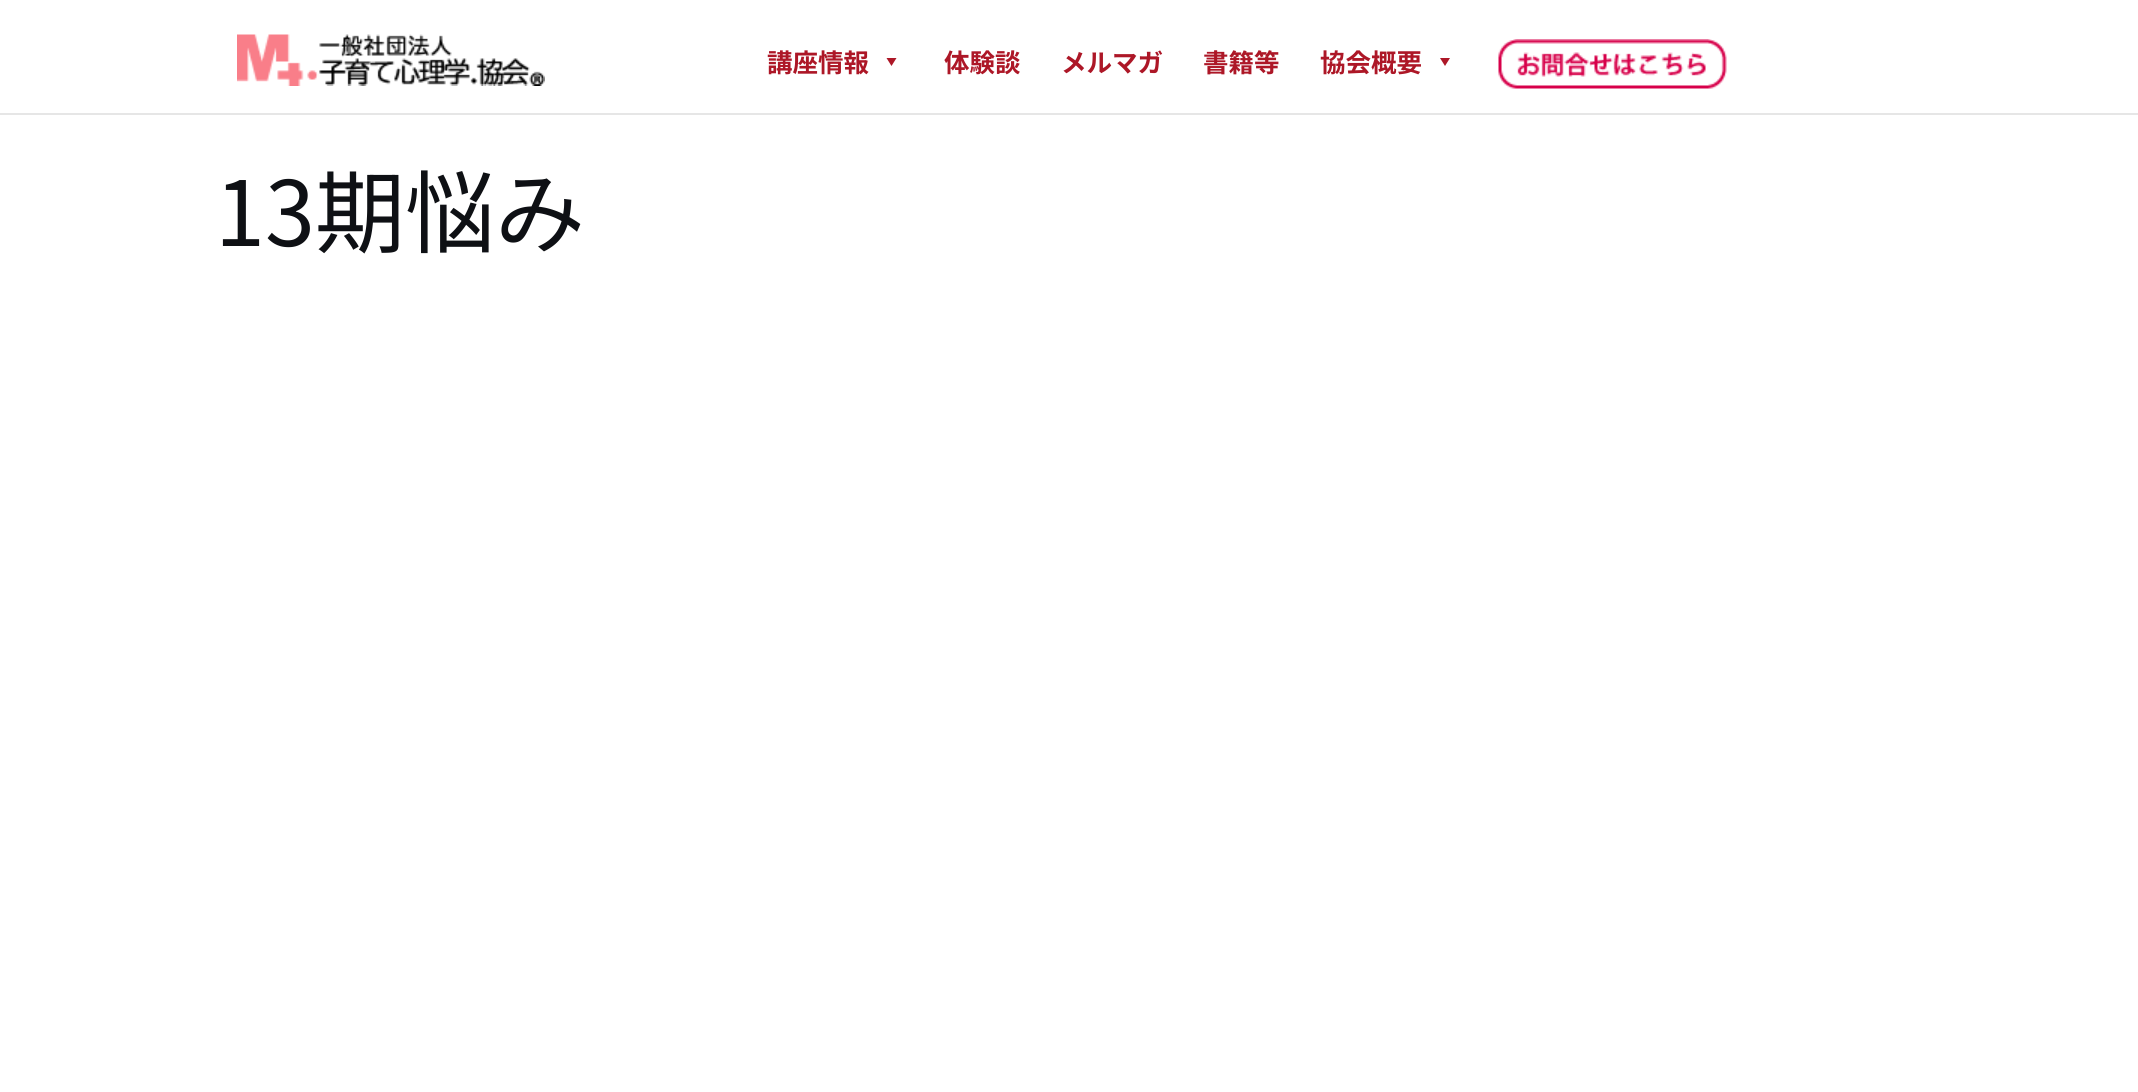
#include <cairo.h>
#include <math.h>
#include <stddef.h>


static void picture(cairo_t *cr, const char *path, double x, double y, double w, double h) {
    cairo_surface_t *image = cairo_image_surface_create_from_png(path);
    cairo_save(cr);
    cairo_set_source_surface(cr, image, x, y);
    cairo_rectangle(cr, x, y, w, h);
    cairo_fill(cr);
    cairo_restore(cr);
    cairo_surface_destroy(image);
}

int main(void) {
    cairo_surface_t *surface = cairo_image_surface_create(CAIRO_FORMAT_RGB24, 2138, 1092);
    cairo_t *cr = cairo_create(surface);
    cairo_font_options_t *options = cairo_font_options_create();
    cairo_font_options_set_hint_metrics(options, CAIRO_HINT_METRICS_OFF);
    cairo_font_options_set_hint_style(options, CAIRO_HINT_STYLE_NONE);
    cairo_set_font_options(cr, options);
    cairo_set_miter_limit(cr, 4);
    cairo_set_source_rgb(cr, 1, 1, 1);
    cairo_paint(cr);
    cairo_set_source_rgb(cr, 0.902, 0.902, 0.902);
    cairo_rectangle(cr, 0, 113, 2138, 2);
    cairo_fill(cr);
    picture(cr, "img1.png", 237, 34, 308, 52);
    cairo_select_font_face(cr, "Noto Sans JP", CAIRO_FONT_SLANT_NORMAL, CAIRO_FONT_WEIGHT_BOLD);
    cairo_set_font_size(cr, 25.5);
    cairo_set_source_rgb(cr, 0.678, 0.09, 0.153);
    cairo_move_to(cr, 767, 72);
    cairo_show_text(cr, "講座情報");
    cairo_new_path(cr);
    cairo_move_to(cr, 896.5, 58);
    cairo_line_to(cr, 891.5, 66);
    cairo_line_to(cr, 886.5, 58);
    cairo_close_path(cr);
    cairo_fill(cr);
    cairo_move_to(cr, 944, 72);
    cairo_show_text(cr, "体験談");
    cairo_move_to(cr, 1061, 72);
    cairo_show_text(cr, "メルマガ");
    cairo_move_to(cr, 1203, 72);
    cairo_show_text(cr, "書籍等");
    cairo_move_to(cr, 1320, 72);
    cairo_show_text(cr, "協会概要");
    cairo_new_path(cr);
    cairo_move_to(cr, 1450, 58);
    cairo_line_to(cr, 1445, 66);
    cairo_line_to(cr, 1440, 58);
    cairo_close_path(cr);
    cairo_fill(cr);
    picture(cr, "img2.png", 1498, 39, 229, 50);
    cairo_select_font_face(cr, "Noto Sans JP", CAIRO_FONT_SLANT_NORMAL, CAIRO_FONT_WEIGHT_NORMAL);
    cairo_set_font_size(cr, 90);
    cairo_set_source_rgb(cr, 0.055, 0.063, 0.082);
    cairo_move_to(cr, 215, 246);
    cairo_show_text(cr, "13期悩み");
    cairo_surface_write_to_png(surface, "page.png");
    cairo_font_options_destroy(options);
    cairo_destroy(cr);
    cairo_surface_destroy(surface);
    return 0;
}
